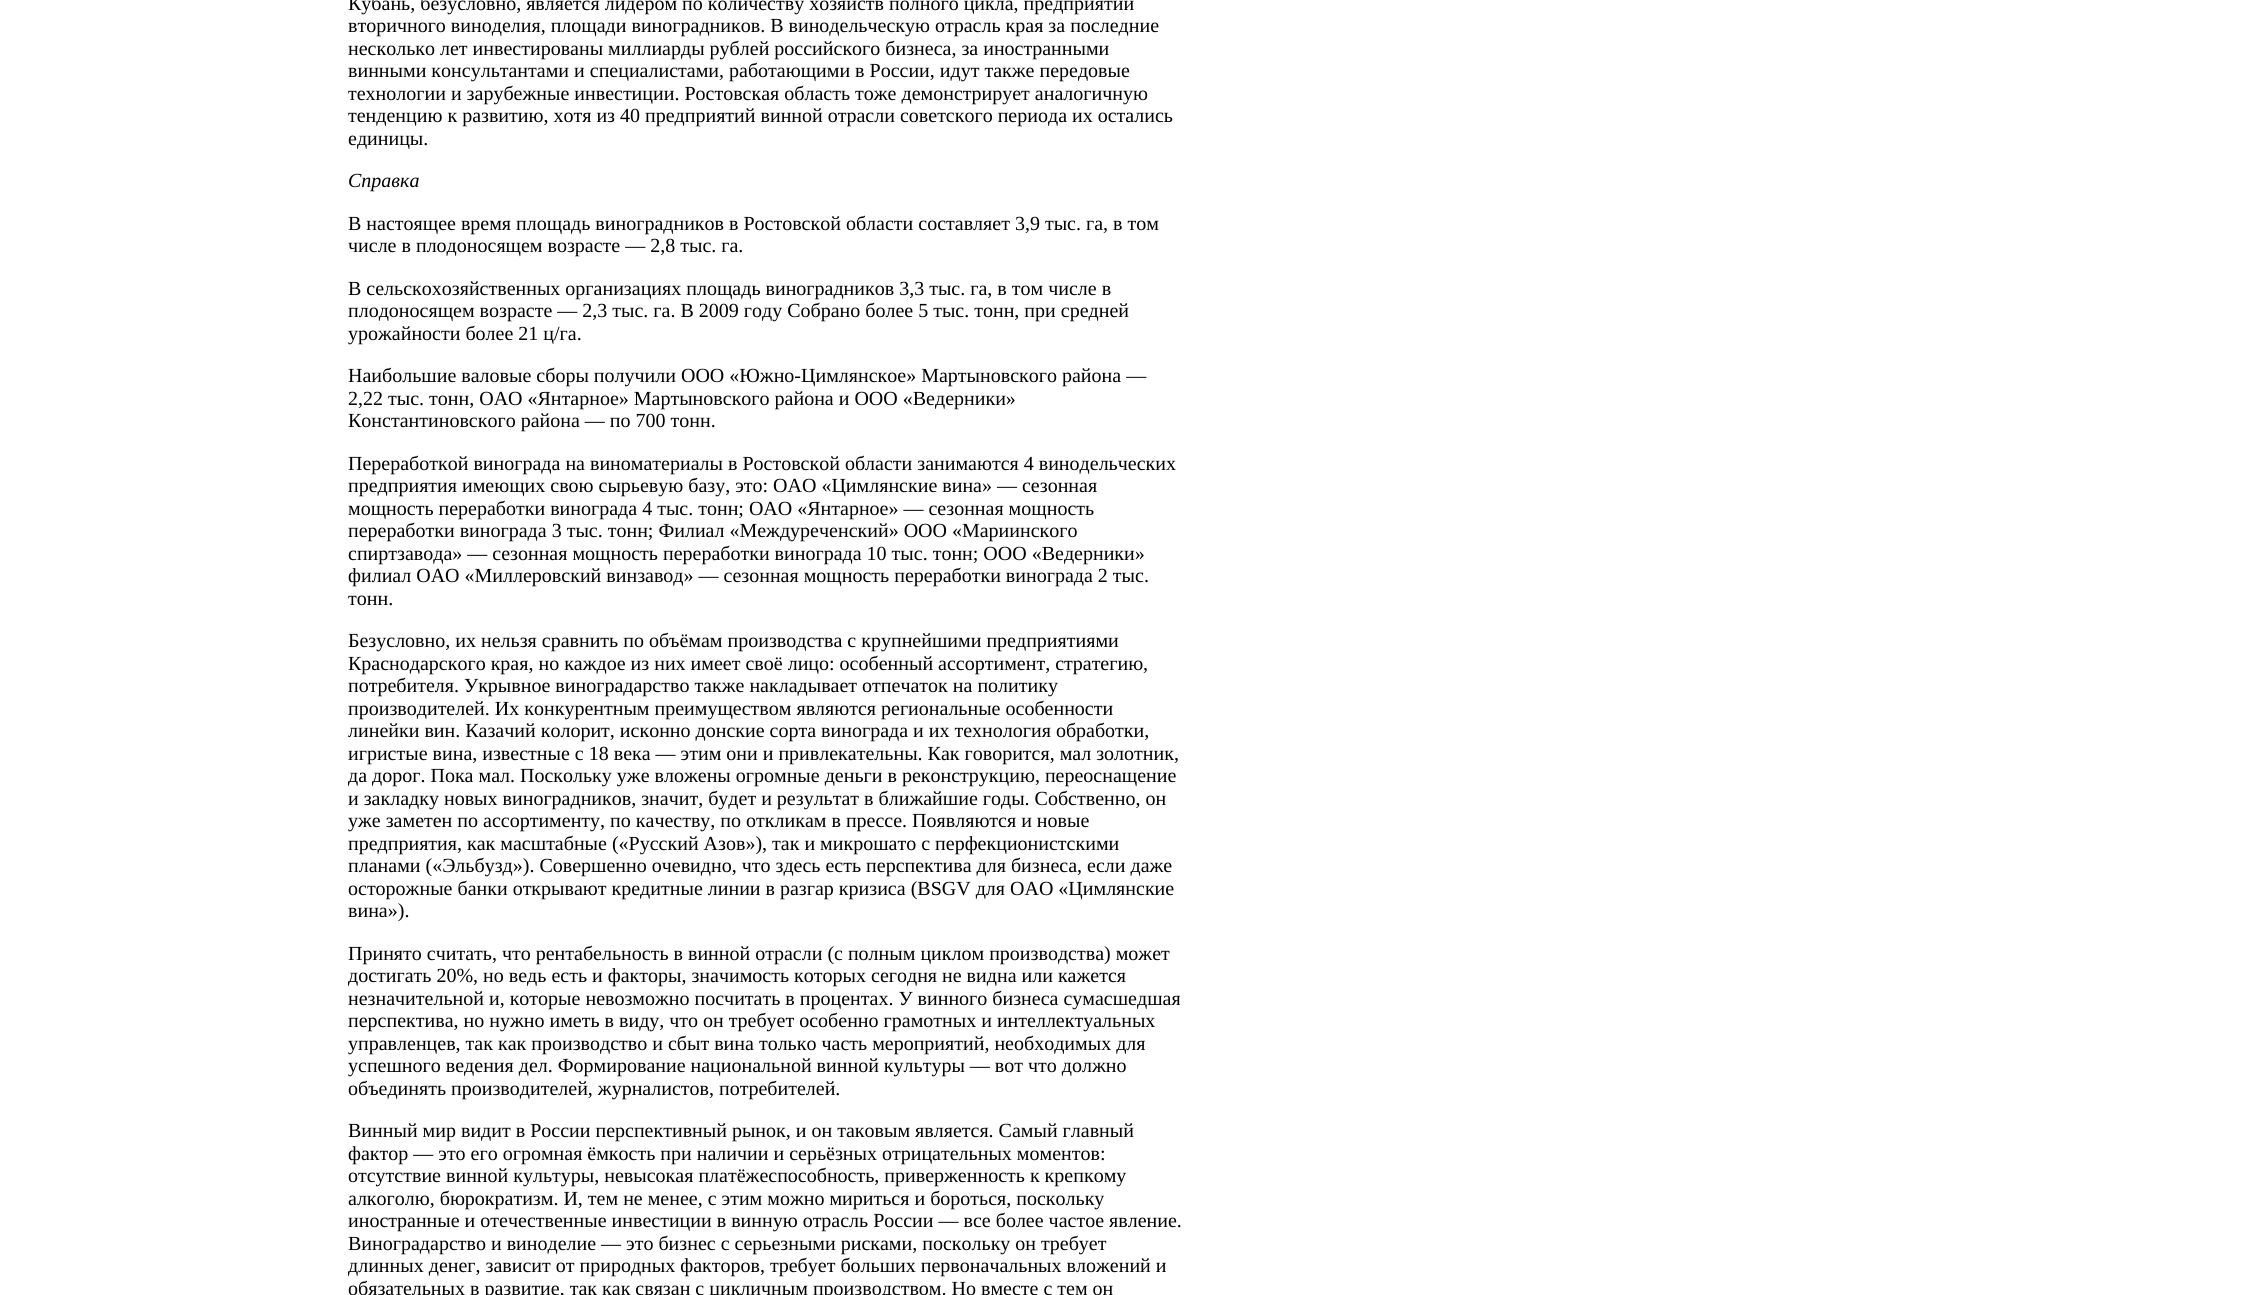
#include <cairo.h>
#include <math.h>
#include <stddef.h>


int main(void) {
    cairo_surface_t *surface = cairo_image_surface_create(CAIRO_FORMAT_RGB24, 2253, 1295);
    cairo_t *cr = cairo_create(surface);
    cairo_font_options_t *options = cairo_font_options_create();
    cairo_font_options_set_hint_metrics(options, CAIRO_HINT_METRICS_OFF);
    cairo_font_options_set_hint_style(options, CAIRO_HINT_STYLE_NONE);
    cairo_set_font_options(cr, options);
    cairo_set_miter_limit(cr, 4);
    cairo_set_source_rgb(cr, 1, 1, 1);
    cairo_paint(cr);
    cairo_select_font_face(cr, "Liberation Serif", CAIRO_FONT_SLANT_NORMAL, CAIRO_FONT_WEIGHT_NORMAL);
    cairo_set_font_size(cr, 20);
    cairo_set_source_rgb(cr, 0, 0, 0);
    cairo_move_to(cr, 348, 10);
    cairo_show_text(cr, "Кубань, безусловно, является лидером по количеству хозяйств полного цикла, предприятий");
    cairo_move_to(cr, 348, 32);
    cairo_show_text(cr, "вторичного виноделия, площади виноградников. В винодельческую отрасль края за последние");
    cairo_move_to(cr, 348, 55);
    cairo_show_text(cr, "несколько лет инвестированы миллиарды рублей российского бизнеса, за иностранными");
    cairo_move_to(cr, 348, 77);
    cairo_show_text(cr, "винными консультантами и специалистами, работающими в России, идут также передовые");
    cairo_move_to(cr, 348, 100);
    cairo_show_text(cr, "технологии и зарубежные инвестиции. Ростовская область тоже демонстрирует аналогичную");
    cairo_move_to(cr, 348, 122);
    cairo_show_text(cr, "тенденцию к развитию, хотя из 40 предприятий винной отрасли советского периода их остались");
    cairo_move_to(cr, 348, 145);
    cairo_show_text(cr, "единицы.");
    cairo_select_font_face(cr, "Liberation Serif", CAIRO_FONT_SLANT_ITALIC, CAIRO_FONT_WEIGHT_NORMAL);
    cairo_move_to(cr, 348, 187);
    cairo_show_text(cr, "Справка");
    cairo_select_font_face(cr, "Liberation Serif", CAIRO_FONT_SLANT_NORMAL, CAIRO_FONT_WEIGHT_NORMAL);
    cairo_move_to(cr, 348, 230);
    cairo_show_text(cr, "В настоящее время площадь виноградников в Ростовской области составляет 3,9 тыс. га, в том");
    cairo_move_to(cr, 348, 252);
    cairo_show_text(cr, "числе в плодоносящем возрасте — 2,8 тыс. га.");
    cairo_move_to(cr, 348, 295);
    cairo_show_text(cr, "В сельскохозяйственных организациях площадь виноградников 3,3 тыс. га, в том числе в");
    cairo_move_to(cr, 348, 317);
    cairo_show_text(cr, "плодоносящем возрасте — 2,3 тыс. га. В 2009 году Собрано более 5 тыс. тонн, при средней");
    cairo_move_to(cr, 348, 340);
    cairo_show_text(cr, "урожайности более 21 ц/га.");
    cairo_move_to(cr, 348, 382);
    cairo_show_text(cr, "Наибольшие валовые сборы получили ООО «Южно-Цимлянское» Мартыновского района —");
    cairo_move_to(cr, 348, 405);
    cairo_show_text(cr, "2,22 тыс. тонн, ОАО «Янтарное» Мартыновского района и ООО «Ведерники»");
    cairo_move_to(cr, 348, 427);
    cairo_show_text(cr, "Константиновского района — по 700 тонн.");
    cairo_move_to(cr, 348, 470);
    cairo_show_text(cr, "Переработкой винограда на виноматериалы в Ростовской области занимаются 4 винодельческих");
    cairo_move_to(cr, 348, 492);
    cairo_show_text(cr, "предприятия имеющих свою сырьевую базу, это: ОАО «Цимлянские вина» — сезонная");
    cairo_move_to(cr, 348, 515);
    cairo_show_text(cr, "мощность переработки винограда 4 тыс. тонн; ОАО «Янтарное» — сезонная мощность");
    cairo_move_to(cr, 348, 537);
    cairo_show_text(cr, "переработки винограда 3 тыс. тонн; Филиал «Междуреченский» ООО «Мариинского");
    cairo_move_to(cr, 348, 560);
    cairo_show_text(cr, "спиртзавода» — сезонная мощность переработки винограда 10 тыс. тонн; ООО «Ведерники»");
    cairo_move_to(cr, 348, 582);
    cairo_show_text(cr, "филиал ОАО «Миллеровский винзавод» — сезонная мощность переработки винограда 2 тыс.");
    cairo_move_to(cr, 348, 605);
    cairo_show_text(cr, "тонн.");
    cairo_move_to(cr, 348, 647);
    cairo_show_text(cr, "Безусловно, их нельзя сравнить по объёмам производства с крупнейшими предприятиями");
    cairo_move_to(cr, 348, 670);
    cairo_show_text(cr, "Краснодарского края, но каждое из них имеет своё лицо: особенный ассортимент, стратегию,");
    cairo_move_to(cr, 348, 692);
    cairo_show_text(cr, "потребителя. Укрывное виноградарство также накладывает отпечаток на политику");
    cairo_move_to(cr, 348, 715);
    cairo_show_text(cr, "производителей. Их конкурентным преимуществом являются региональные особенности");
    cairo_move_to(cr, 348, 737);
    cairo_show_text(cr, "линейки вин. Казачий колорит, исконно донские сорта винограда и их технология обработки,");
    cairo_move_to(cr, 348, 760);
    cairo_show_text(cr, "игристые вина, известные с 18 века — этим они и привлекательны. Как говорится, мал золотник,");
    cairo_move_to(cr, 348, 782);
    cairo_show_text(cr, "да дорог. Пока мал. Поскольку уже вложены огромные деньги в реконструкцию, переоснащение");
    cairo_move_to(cr, 348, 805);
    cairo_show_text(cr, "и закладку новых виноградников, значит, будет и результат в ближайшие годы. Собственно, он");
    cairo_move_to(cr, 348, 827);
    cairo_show_text(cr, "уже заметен по ассортименту, по качеству, по откликам в прессе. Появляются и новые");
    cairo_move_to(cr, 348, 850);
    cairo_show_text(cr, "предприятия, как масштабные («Русский Азов»), так и микрошато с перфекционистскими");
    cairo_move_to(cr, 348, 872);
    cairo_show_text(cr, "планами («Эльбузд»). Совершенно очевидно, что здесь есть перспектива для бизнеса, если даже");
    cairo_move_to(cr, 348, 895);
    cairo_show_text(cr, "осторожные банки открывают кредитные линии в разгар кризиса (BSGV для ОАО «Цимлянские");
    cairo_move_to(cr, 348, 917);
    cairo_show_text(cr, "вина»).");
    cairo_move_to(cr, 348, 960);
    cairo_show_text(cr, "Принято считать, что рентабельность в винной отрасли (с полным циклом производства) может");
    cairo_move_to(cr, 348, 982);
    cairo_show_text(cr, "достигать 20%, но ведь есть и факторы, значимость которых сегодня не видна или кажется");
    cairo_move_to(cr, 348, 1005);
    cairo_show_text(cr, "незначительной и, которые невозможно посчитать в процентах. У винного бизнеса сумасшедшая");
    cairo_move_to(cr, 348, 1027);
    cairo_show_text(cr, "перспектива, но нужно иметь в виду, что он требует особенно грамотных и интеллектуальных");
    cairo_move_to(cr, 348, 1050);
    cairo_show_text(cr, "управленцев, так как производство и сбыт вина только часть мероприятий, необходимых для");
    cairo_move_to(cr, 348, 1072);
    cairo_show_text(cr, "успешного ведения дел. Формирование национальной винной культуры — вот что должно");
    cairo_move_to(cr, 348, 1095);
    cairo_show_text(cr, "объединять производителей, журналистов, потребителей.");
    cairo_move_to(cr, 348, 1137);
    cairo_show_text(cr, "Винный мир видит в России перспективный рынок, и он таковым является. Самый главный");
    cairo_move_to(cr, 348, 1160);
    cairo_show_text(cr, "фактор — это его огромная ёмкость при наличии и серьёзных отрицательных моментов:");
    cairo_move_to(cr, 348, 1182);
    cairo_show_text(cr, "отсутствие винной культуры, невысокая платёжеспособность, приверженность к крепкому");
    cairo_move_to(cr, 348, 1205);
    cairo_show_text(cr, "алкоголю, бюрократизм. И, тем не менее, с этим можно мириться и бороться, поскольку");
    cairo_move_to(cr, 348, 1227);
    cairo_show_text(cr, "иностранные и отечественные инвестиции в винную отрасль России — все более частое явление.");
    cairo_move_to(cr, 348, 1250);
    cairo_show_text(cr, "Виноградарство и виноделие — это бизнес с серьезными рисками, поскольку он требует");
    cairo_move_to(cr, 348, 1272);
    cairo_show_text(cr, "длинных денег, зависит от природных факторов, требует больших первоначальных вложений и");
    cairo_move_to(cr, 348, 1295);
    cairo_show_text(cr, "обязательных в развитие, так как связан с цикличным производством. Но вместе с тем он");
    cairo_surface_write_to_png(surface, "page.png");
    cairo_font_options_destroy(options);
    cairo_destroy(cr);
    cairo_surface_destroy(surface);
    return 0;
}
